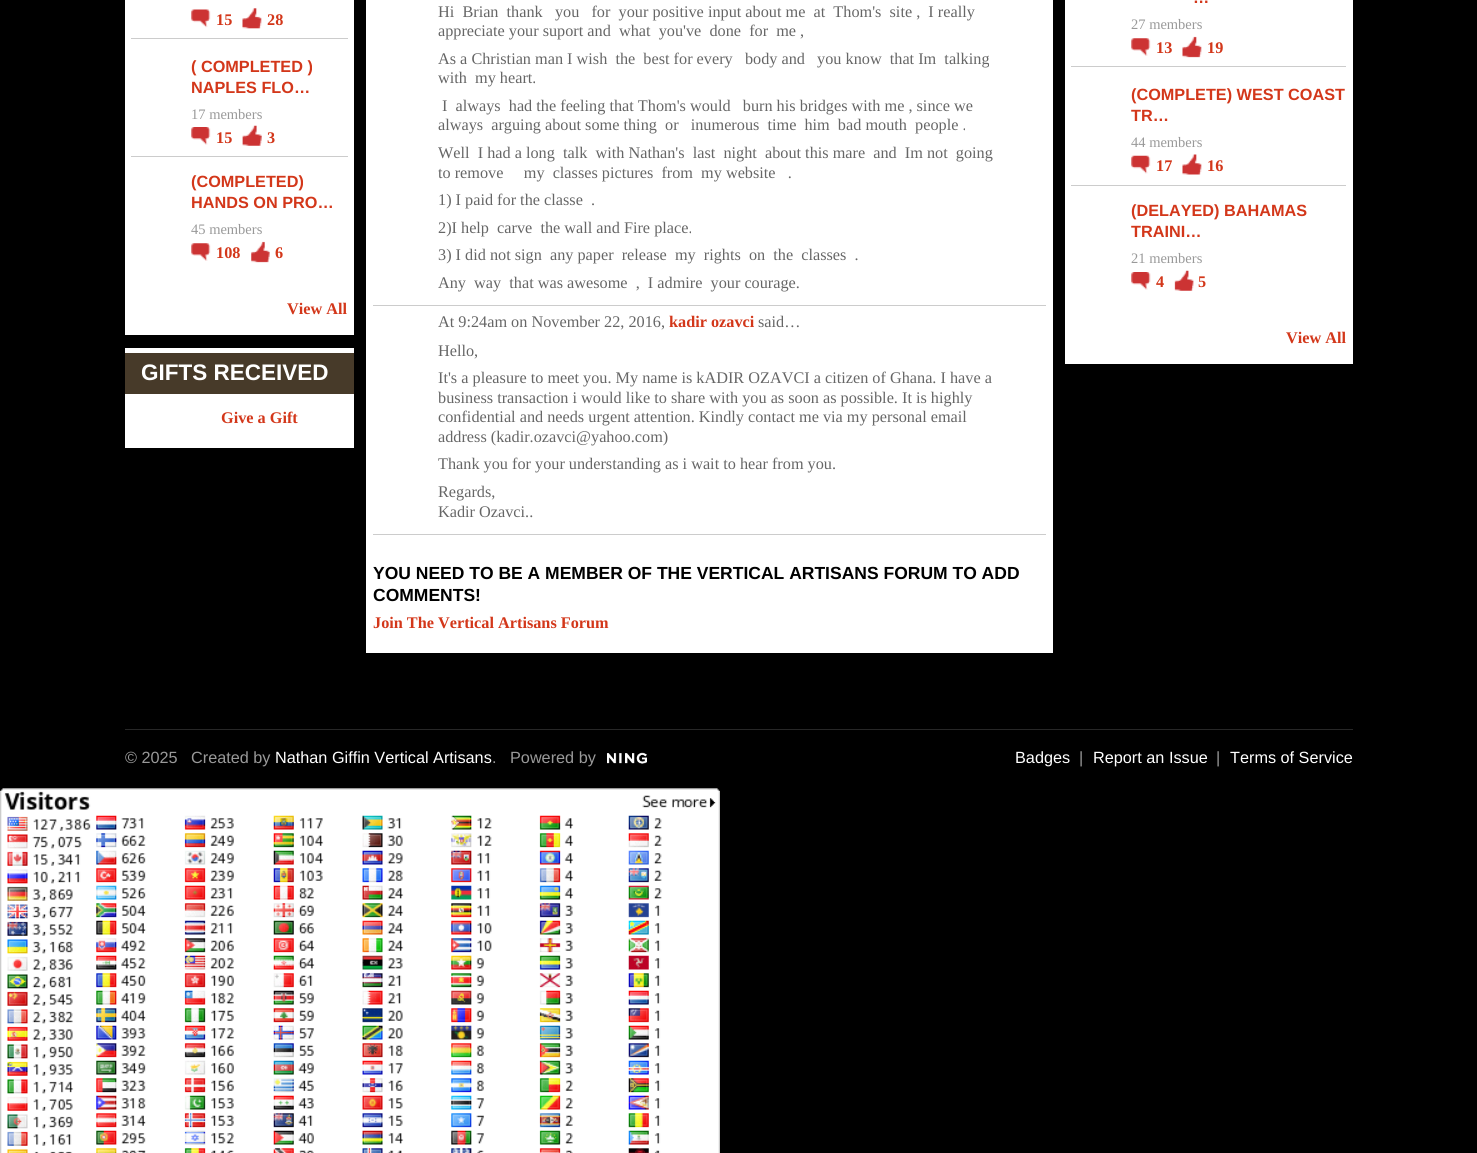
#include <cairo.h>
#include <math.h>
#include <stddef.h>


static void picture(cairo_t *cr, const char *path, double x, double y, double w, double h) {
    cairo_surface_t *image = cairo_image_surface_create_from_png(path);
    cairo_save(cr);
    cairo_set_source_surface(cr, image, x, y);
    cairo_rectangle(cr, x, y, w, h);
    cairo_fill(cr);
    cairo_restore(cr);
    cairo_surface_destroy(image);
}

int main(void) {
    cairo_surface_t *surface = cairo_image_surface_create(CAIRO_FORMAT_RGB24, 1477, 1153);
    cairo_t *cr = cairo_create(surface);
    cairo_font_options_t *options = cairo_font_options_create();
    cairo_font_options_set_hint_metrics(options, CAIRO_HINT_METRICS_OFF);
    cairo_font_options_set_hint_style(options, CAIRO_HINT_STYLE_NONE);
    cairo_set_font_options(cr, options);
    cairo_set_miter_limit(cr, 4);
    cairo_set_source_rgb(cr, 0, 0, 0);
    cairo_paint(cr);
    cairo_set_source_rgb(cr, 1, 1, 1);
    cairo_rectangle(cr, 125, 0, 229, 335);
    cairo_fill(cr);
    cairo_set_source_rgb(cr, 0.8, 0.8, 0.8);
    cairo_rectangle(cr, 131, 38, 217, 1);
    cairo_fill(cr);
    picture(cr, "img1.png", 191, 9, 20, 19);
    cairo_select_font_face(cr, "Liberation Serif", CAIRO_FONT_SLANT_NORMAL, CAIRO_FONT_WEIGHT_BOLD);
    cairo_set_font_size(cr, 16.25);
    cairo_set_source_rgb(cr, 0.827, 0.216, 0.102);
    cairo_move_to(cr, 216, 25);
    cairo_show_text(cr, "15");
    picture(cr, "img2.png", 242, 8, 20, 21);
    cairo_move_to(cr, 267, 25);
    cairo_show_text(cr, "28");
    cairo_set_source_rgb(cr, 0.8, 0.8, 0.8);
    cairo_rectangle(cr, 131, 156, 217, 1);
    cairo_fill(cr);
    cairo_select_font_face(cr, "Liberation Sans", CAIRO_FONT_SLANT_NORMAL, CAIRO_FONT_WEIGHT_BOLD);
    cairo_set_source_rgb(cr, 0.827, 0.216, 0.102);
    cairo_move_to(cr, 191, 72);
    cairo_show_text(cr, "( COMPLETED )");
    cairo_move_to(cr, 191, 93);
    cairo_show_text(cr, "NAPLES FLO…");
    cairo_select_font_face(cr, "Liberation Serif", CAIRO_FONT_SLANT_NORMAL, CAIRO_FONT_WEIGHT_NORMAL);
    cairo_set_font_size(cr, 14.5);
    cairo_set_source_rgb(cr, 0.6, 0.6, 0.6);
    cairo_move_to(cr, 191, 119);
    cairo_show_text(cr, "17 members");
    picture(cr, "img3.png", 191, 127, 20, 18);
    cairo_select_font_face(cr, "Liberation Serif", CAIRO_FONT_SLANT_NORMAL, CAIRO_FONT_WEIGHT_BOLD);
    cairo_set_font_size(cr, 16.25);
    cairo_set_source_rgb(cr, 0.827, 0.216, 0.102);
    cairo_move_to(cr, 216, 143);
    cairo_show_text(cr, "15");
    picture(cr, "img4.png", 242, 125, 20, 21);
    cairo_move_to(cr, 267, 143);
    cairo_show_text(cr, "3");
    cairo_select_font_face(cr, "Liberation Sans", CAIRO_FONT_SLANT_NORMAL, CAIRO_FONT_WEIGHT_BOLD);
    cairo_move_to(cr, 191, 187);
    cairo_show_text(cr, "(COMPLETED)");
    cairo_move_to(cr, 191, 208);
    cairo_show_text(cr, "HANDS ON PRO…");
    cairo_select_font_face(cr, "Liberation Serif", CAIRO_FONT_SLANT_NORMAL, CAIRO_FONT_WEIGHT_NORMAL);
    cairo_set_font_size(cr, 14.5);
    cairo_set_source_rgb(cr, 0.6, 0.6, 0.6);
    cairo_move_to(cr, 191, 234);
    cairo_show_text(cr, "45 members");
    picture(cr, "img5.png", 191, 243, 20, 18);
    cairo_select_font_face(cr, "Liberation Serif", CAIRO_FONT_SLANT_NORMAL, CAIRO_FONT_WEIGHT_BOLD);
    cairo_set_font_size(cr, 16.25);
    cairo_set_source_rgb(cr, 0.827, 0.216, 0.102);
    cairo_move_to(cr, 216, 258);
    cairo_show_text(cr, "108");
    picture(cr, "img6.png", 251, 241, 19, 22);
    cairo_move_to(cr, 275, 258);
    cairo_show_text(cr, "6");
    cairo_move_to(cr, 287, 314);
    cairo_show_text(cr, "View All");
    cairo_set_source_rgb(cr, 1, 1, 1);
    cairo_rectangle(cr, 125, 348, 229, 100);
    cairo_fill(cr);
    cairo_set_source_rgb(cr, 0.278, 0.227, 0.161);
    cairo_rectangle(cr, 125, 353, 229, 41);
    cairo_fill(cr);
    cairo_select_font_face(cr, "Liberation Sans", CAIRO_FONT_SLANT_NORMAL, CAIRO_FONT_WEIGHT_BOLD);
    cairo_set_font_size(cr, 22.5);
    cairo_set_source_rgb(cr, 1, 1, 1);
    cairo_move_to(cr, 141, 380);
    cairo_show_text(cr, "GIFTS RECEIVED");
    cairo_select_font_face(cr, "Liberation Serif", CAIRO_FONT_SLANT_NORMAL, CAIRO_FONT_WEIGHT_BOLD);
    cairo_set_font_size(cr, 16.25);
    cairo_set_source_rgb(cr, 0.827, 0.216, 0.102);
    cairo_move_to(cr, 221, 423);
    cairo_show_text(cr, "Give a Gift");
    cairo_set_source_rgb(cr, 1, 1, 1);
    cairo_rectangle(cr, 366, 0, 687, 653);
    cairo_fill(cr);
    cairo_set_source_rgb(cr, 0.8, 0.8, 0.8);
    cairo_rectangle(cr, 373, 305, 673, 1);
    cairo_fill(cr);
    cairo_select_font_face(cr, "Liberation Serif", CAIRO_FONT_SLANT_NORMAL, CAIRO_FONT_WEIGHT_NORMAL);
    cairo_set_source_rgb(cr, 0.4, 0.4, 0.4);
    cairo_move_to(cr, 438, 17);
    cairo_show_text(cr, "Hi  Brian  thank   you   for  your positive input about me  at  Thom's  site ,  I really");
    cairo_move_to(cr, 438, 36);
    cairo_show_text(cr, "appreciate your suport and  what  you've  done  for  me ,");
    cairo_move_to(cr, 438, 64);
    cairo_show_text(cr, "As a Christian man I wish  the  best for every   body and   you know  that Im  talking");
    cairo_move_to(cr, 438, 83);
    cairo_show_text(cr, "with  my heart.");
    cairo_move_to(cr, 442, 111);
    cairo_show_text(cr, "I  always  had the feeling that Thom's would   burn his bridges with me , since we");
    cairo_move_to(cr, 438, 130);
    cairo_show_text(cr, "always  arguing about some thing  or   inumerous  time  him  bad mouth  people .");
    cairo_move_to(cr, 438, 158);
    cairo_show_text(cr, "Well  I had a long  talk  with Nathan's  last  night  about this mare  and  Im not  going");
    cairo_move_to(cr, 438, 178);
    cairo_show_text(cr, "to remove     my  classes pictures  from  my website   .");
    cairo_move_to(cr, 438, 205);
    cairo_show_text(cr, "1) I paid for the classe  .");
    cairo_move_to(cr, 438, 233);
    cairo_show_text(cr, "2)I help  carve  the wall and Fire place.");
    cairo_move_to(cr, 438, 260);
    cairo_show_text(cr, "3) I did not sign  any paper  release  my  rights  on  the  classes  .");
    cairo_move_to(cr, 438, 288);
    cairo_show_text(cr, "Any  way  that was awesome  ,  I admire  your courage.");
    cairo_set_source_rgb(cr, 0.8, 0.8, 0.8);
    cairo_rectangle(cr, 373, 534, 673, 1);
    cairo_fill(cr);
    cairo_set_source_rgb(cr, 0.4, 0.4, 0.4);
    cairo_move_to(cr, 438, 327);
    cairo_show_text(cr, "At 9:24am on November 22, 2016,");
    cairo_select_font_face(cr, "Liberation Serif", CAIRO_FONT_SLANT_NORMAL, CAIRO_FONT_WEIGHT_BOLD);
    cairo_set_source_rgb(cr, 0.827, 0.216, 0.102);
    cairo_move_to(cr, 669, 327);
    cairo_show_text(cr, "kadir ozavci");
    cairo_select_font_face(cr, "Liberation Serif", CAIRO_FONT_SLANT_NORMAL, CAIRO_FONT_WEIGHT_NORMAL);
    cairo_set_source_rgb(cr, 0.4, 0.4, 0.4);
    cairo_move_to(cr, 758, 327);
    cairo_show_text(cr, "said…");
    cairo_move_to(cr, 438, 356);
    cairo_show_text(cr, "Hello,");
    cairo_move_to(cr, 438, 383);
    cairo_show_text(cr, "It's a pleasure to meet you. My name is kADIR OZAVCI a citizen of Ghana. I have a");
    cairo_move_to(cr, 438, 403);
    cairo_show_text(cr, "business transaction i would like to share with you as soon as possible. It is highly");
    cairo_move_to(cr, 438, 422);
    cairo_show_text(cr, "confidential and needs urgent attention. Kindly contact me via my personal email");
    cairo_move_to(cr, 438, 442);
    cairo_show_text(cr, "address (kadir.ozavci@yahoo.com)");
    cairo_save(cr);
    cairo_rectangle(cr, 438, 335, 565, 193);
    cairo_clip(cr);
    cairo_move_to(cr, 438, 469);
    cairo_show_text(cr, "Thank you for your understanding as i wait to hear from you.");
    cairo_restore(cr);
    cairo_move_to(cr, 438, 497);
    cairo_show_text(cr, "Regards,");
    cairo_move_to(cr, 438, 517);
    cairo_show_text(cr, "Kadir Ozavci..");
    cairo_select_font_face(cr, "Liberation Sans", CAIRO_FONT_SLANT_NORMAL, CAIRO_FONT_WEIGHT_BOLD);
    cairo_set_font_size(cr, 17.5);
    cairo_set_source_rgb(cr, 0, 0, 0);
    cairo_move_to(cr, 373, 579);
    cairo_show_text(cr, "YOU NEED TO BE A MEMBER OF THE VERTICAL ARTISANS FORUM TO ADD");
    cairo_move_to(cr, 373, 601);
    cairo_show_text(cr, "COMMENTS!");
    cairo_select_font_face(cr, "Liberation Serif", CAIRO_FONT_SLANT_NORMAL, CAIRO_FONT_WEIGHT_BOLD);
    cairo_set_font_size(cr, 16.25);
    cairo_set_source_rgb(cr, 0.827, 0.216, 0.102);
    cairo_move_to(cr, 373, 628);
    cairo_show_text(cr, "Join The Vertical Artisans Forum");
    cairo_set_source_rgb(cr, 1, 1, 1);
    cairo_rectangle(cr, 1065, 0, 288, 364);
    cairo_fill(cr);
    cairo_set_source_rgb(cr, 0.8, 0.8, 0.8);
    cairo_rectangle(cr, 1071, 66, 275, 1);
    cairo_fill(cr);
    cairo_select_font_face(cr, "Liberation Sans", CAIRO_FONT_SLANT_NORMAL, CAIRO_FONT_WEIGHT_BOLD);
    cairo_set_source_rgb(cr, 0.827, 0.216, 0.102);
    cairo_move_to(cr, 1193, 3);
    cairo_show_text(cr, "…");
    cairo_select_font_face(cr, "Liberation Serif", CAIRO_FONT_SLANT_NORMAL, CAIRO_FONT_WEIGHT_NORMAL);
    cairo_set_font_size(cr, 14.5);
    cairo_set_source_rgb(cr, 0.6, 0.6, 0.6);
    cairo_move_to(cr, 1131, 29);
    cairo_show_text(cr, "27 members");
    picture(cr, "img5.png", 1131, 38, 20, 18);
    cairo_select_font_face(cr, "Liberation Serif", CAIRO_FONT_SLANT_NORMAL, CAIRO_FONT_WEIGHT_BOLD);
    cairo_set_font_size(cr, 16.25);
    cairo_set_source_rgb(cr, 0.827, 0.216, 0.102);
    cairo_move_to(cr, 1156, 53);
    cairo_show_text(cr, "13");
    picture(cr, "img7.png", 1182, 36, 20, 22);
    cairo_move_to(cr, 1207, 53);
    cairo_show_text(cr, "19");
    cairo_set_source_rgb(cr, 0.8, 0.8, 0.8);
    cairo_rectangle(cr, 1071, 185, 275, 1);
    cairo_fill(cr);
    cairo_select_font_face(cr, "Liberation Sans", CAIRO_FONT_SLANT_NORMAL, CAIRO_FONT_WEIGHT_BOLD);
    cairo_set_source_rgb(cr, 0.827, 0.216, 0.102);
    cairo_move_to(cr, 1131, 100);
    cairo_show_text(cr, "(COMPLETE) WEST COAST");
    cairo_move_to(cr, 1131, 121);
    cairo_show_text(cr, "TR…");
    cairo_select_font_face(cr, "Liberation Serif", CAIRO_FONT_SLANT_NORMAL, CAIRO_FONT_WEIGHT_NORMAL);
    cairo_set_font_size(cr, 14.5);
    cairo_set_source_rgb(cr, 0.6, 0.6, 0.6);
    cairo_move_to(cr, 1131, 147);
    cairo_show_text(cr, "44 members");
    picture(cr, "img8.png", 1131, 155, 20, 19);
    cairo_select_font_face(cr, "Liberation Serif", CAIRO_FONT_SLANT_NORMAL, CAIRO_FONT_WEIGHT_BOLD);
    cairo_set_font_size(cr, 16.25);
    cairo_set_source_rgb(cr, 0.827, 0.216, 0.102);
    cairo_move_to(cr, 1156, 171);
    cairo_show_text(cr, "17");
    picture(cr, "img9.png", 1182, 154, 20, 21);
    cairo_move_to(cr, 1207, 171);
    cairo_show_text(cr, "16");
    cairo_select_font_face(cr, "Liberation Sans", CAIRO_FONT_SLANT_NORMAL, CAIRO_FONT_WEIGHT_BOLD);
    cairo_move_to(cr, 1131, 216);
    cairo_show_text(cr, "(DELAYED) BAHAMAS");
    cairo_move_to(cr, 1131, 237);
    cairo_show_text(cr, "TRAINI…");
    cairo_select_font_face(cr, "Liberation Serif", CAIRO_FONT_SLANT_NORMAL, CAIRO_FONT_WEIGHT_NORMAL);
    cairo_set_font_size(cr, 14.5);
    cairo_set_source_rgb(cr, 0.6, 0.6, 0.6);
    cairo_move_to(cr, 1131, 263);
    cairo_show_text(cr, "21 members");
    picture(cr, "img10.png", 1131, 272, 20, 18);
    cairo_select_font_face(cr, "Liberation Serif", CAIRO_FONT_SLANT_NORMAL, CAIRO_FONT_WEIGHT_BOLD);
    cairo_set_font_size(cr, 16.25);
    cairo_set_source_rgb(cr, 0.827, 0.216, 0.102);
    cairo_move_to(cr, 1156, 287);
    cairo_show_text(cr, "4");
    picture(cr, "img11.png", 1174, 270, 20, 21);
    cairo_move_to(cr, 1198, 287);
    cairo_show_text(cr, "5");
    cairo_move_to(cr, 1286, 343);
    cairo_show_text(cr, "View All");
    cairo_set_source_rgb(cr, 0.153, 0.153, 0.153);
    cairo_rectangle(cr, 125, 729, 1228, 1);
    cairo_fill(cr);
    cairo_select_font_face(cr, "Liberation Sans", CAIRO_FONT_SLANT_NORMAL, CAIRO_FONT_WEIGHT_NORMAL);
    cairo_set_source_rgb(cr, 0.6, 0.6, 0.6);
    cairo_move_to(cr, 125, 763);
    cairo_show_text(cr, "© 2025");
    cairo_move_to(cr, 191, 763);
    cairo_show_text(cr, "Created by");
    cairo_set_source_rgb(cr, 1, 1, 1);
    cairo_move_to(cr, 275, 763);
    cairo_show_text(cr, "Nathan Giffin Vertical Artisans");
    cairo_set_source_rgb(cr, 0.6, 0.6, 0.6);
    cairo_move_to(cr, 492, 763);
    cairo_show_text(cr, ".");
    cairo_move_to(cr, 510, 763);
    cairo_show_text(cr, "Powered by");
    picture(cr, "img12.png", 607, 752, 40, 12);
    cairo_set_source_rgb(cr, 1, 1, 1);
    cairo_move_to(cr, 1015, 763);
    cairo_show_text(cr, "Badges");
    cairo_set_source_rgb(cr, 0.6, 0.6, 0.6);
    cairo_move_to(cr, 1079, 763);
    cairo_show_text(cr, "|");
    cairo_set_source_rgb(cr, 1, 1, 1);
    cairo_move_to(cr, 1093, 763);
    cairo_show_text(cr, "Report an Issue");
    cairo_set_source_rgb(cr, 0.6, 0.6, 0.6);
    cairo_move_to(cr, 1216, 763);
    cairo_show_text(cr, "|");
    cairo_set_source_rgb(cr, 1, 1, 1);
    cairo_move_to(cr, 1230, 763);
    cairo_show_text(cr, "Terms of Service");
    picture(cr, "img13.png", 0, 788, 720, 365);
    cairo_surface_write_to_png(surface, "page.png");
    cairo_font_options_destroy(options);
    cairo_destroy(cr);
    cairo_surface_destroy(surface);
    return 0;
}
